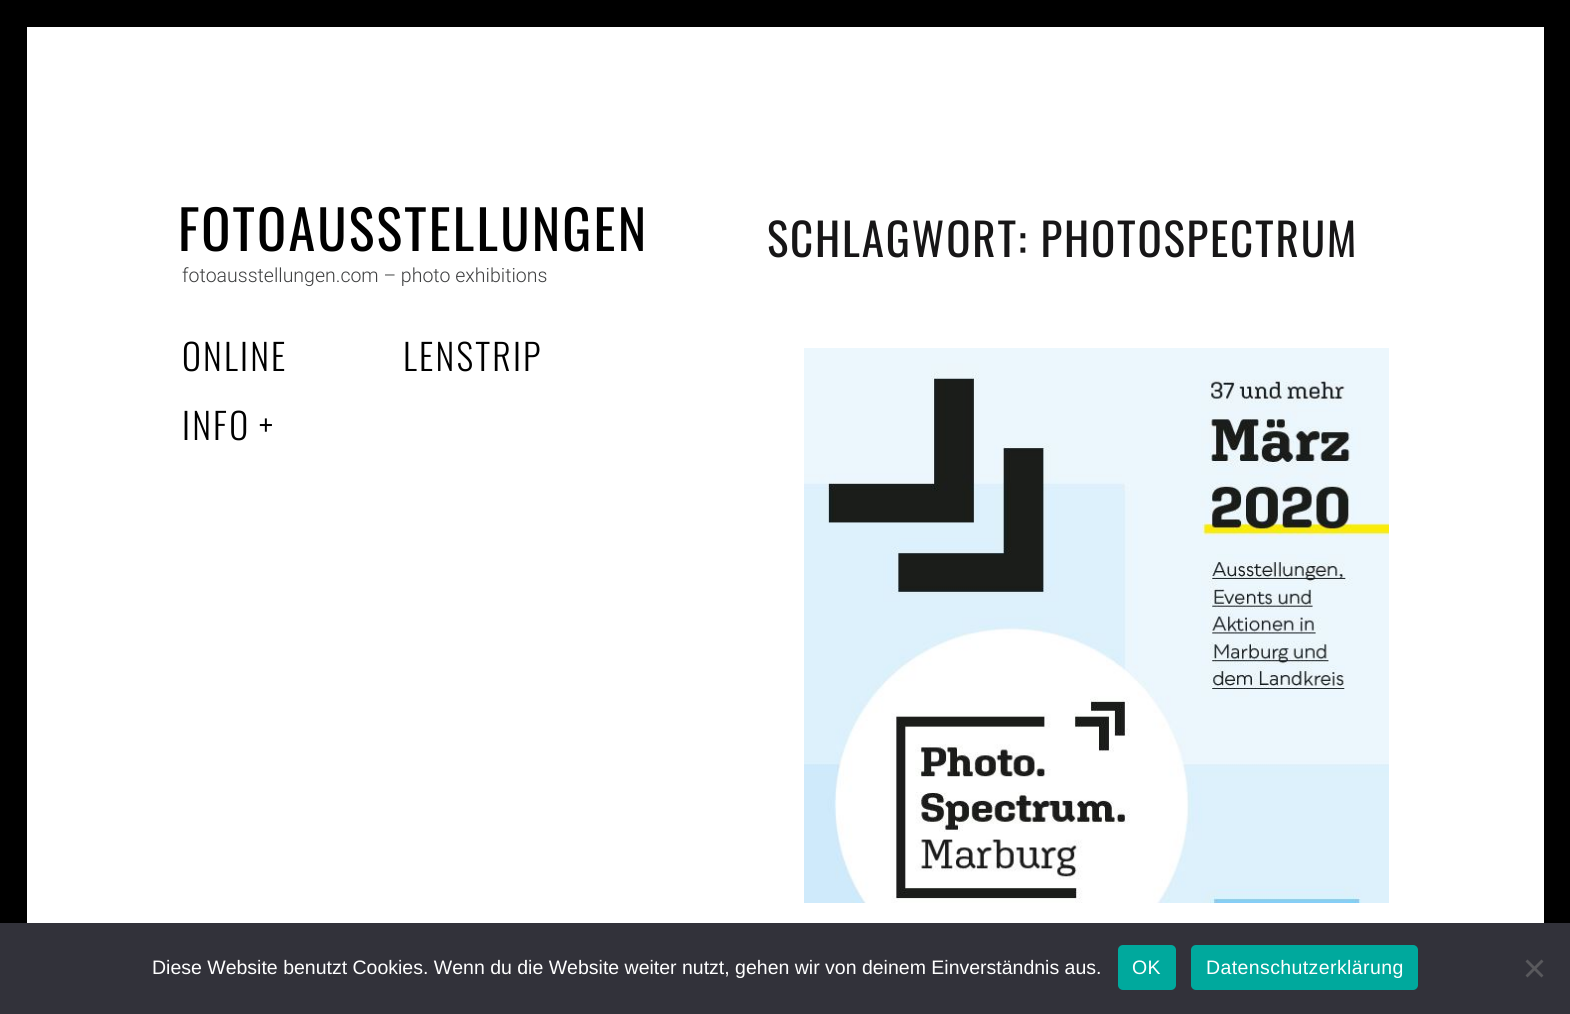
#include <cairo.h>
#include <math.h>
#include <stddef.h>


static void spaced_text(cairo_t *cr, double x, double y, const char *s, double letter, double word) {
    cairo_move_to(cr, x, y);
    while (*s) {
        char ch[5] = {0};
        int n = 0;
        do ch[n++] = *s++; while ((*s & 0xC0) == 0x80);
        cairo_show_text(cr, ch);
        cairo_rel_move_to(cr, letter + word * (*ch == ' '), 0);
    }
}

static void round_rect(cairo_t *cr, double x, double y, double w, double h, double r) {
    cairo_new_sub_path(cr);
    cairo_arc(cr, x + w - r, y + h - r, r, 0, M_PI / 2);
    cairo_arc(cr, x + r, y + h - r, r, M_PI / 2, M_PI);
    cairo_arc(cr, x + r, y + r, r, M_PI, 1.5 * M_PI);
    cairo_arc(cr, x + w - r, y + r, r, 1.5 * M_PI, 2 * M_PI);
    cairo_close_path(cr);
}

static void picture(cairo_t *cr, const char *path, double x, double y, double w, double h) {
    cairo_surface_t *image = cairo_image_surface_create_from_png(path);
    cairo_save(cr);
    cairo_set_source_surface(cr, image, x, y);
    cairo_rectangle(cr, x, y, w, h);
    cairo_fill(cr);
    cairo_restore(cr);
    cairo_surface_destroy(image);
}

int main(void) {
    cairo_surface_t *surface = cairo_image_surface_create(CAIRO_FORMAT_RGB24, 1570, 1014);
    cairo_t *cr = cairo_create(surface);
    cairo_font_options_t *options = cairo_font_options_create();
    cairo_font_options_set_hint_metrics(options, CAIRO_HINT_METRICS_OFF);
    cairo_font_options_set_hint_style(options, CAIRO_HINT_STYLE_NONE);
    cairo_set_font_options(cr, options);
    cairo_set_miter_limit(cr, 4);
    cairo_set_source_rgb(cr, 1, 1, 1);
    cairo_paint(cr);
    cairo_set_source_rgb(cr, 0, 0, 0);
    cairo_rectangle(cr, 27, 0, 1517, 27);
    cairo_fill(cr);
    cairo_rectangle(cr, 1544, 0, 26, 923);
    cairo_fill(cr);
    cairo_rectangle(cr, 0, 0, 27, 923);
    cairo_fill(cr);
    cairo_select_font_face(cr, "Oswald", CAIRO_FONT_SLANT_NORMAL, CAIRO_FONT_WEIGHT_NORMAL);
    cairo_set_font_size(cr, 54);
    spaced_text(cr, 178, 251, "FOTOAUSSTELLUNGEN", 2.2, 0);
    cairo_select_font_face(cr, "Roboto Light", CAIRO_FONT_SLANT_NORMAL, CAIRO_FONT_WEIGHT_NORMAL);
    cairo_set_font_size(cr, 19.5);
    cairo_set_source_rgb(cr, 0.243, 0.247, 0.251);
    cairo_move_to(cr, 182, 282);
    cairo_show_text(cr, "fotoausstellungen.com – photo exhibitions");
    cairo_select_font_face(cr, "Oswald Light", CAIRO_FONT_SLANT_NORMAL, CAIRO_FONT_WEIGHT_NORMAL);
    cairo_set_font_size(cr, 36);
    cairo_set_source_rgb(cr, 0, 0, 0);
    spaced_text(cr, 182, 371, "ONLINE", 2.2, 0);
    spaced_text(cr, 403, 371, "LENSTRIP", 2.2, 0);
    spaced_text(cr, 182, 440, "INFO", 2.2, 0);
    spaced_text(cr, 259, 440, "+", 2.2, 0);
    cairo_select_font_face(cr, "Oswald", CAIRO_FONT_SLANT_NORMAL, CAIRO_FONT_WEIGHT_NORMAL);
    cairo_set_font_size(cr, 45);
    cairo_set_source_rgb(cr, 0.09, 0.086, 0.09);
    spaced_text(cr, 767, 257, "SCHLAGWORT: PHOTOSPECTRUM", 1.8, 0);
    picture(cr, "img1.png", 804, 348, 585, 555);
    cairo_set_source_rgb(cr, 0.196, 0.196, 0.227);
    cairo_rectangle(cr, 0, 923, 1570, 91);
    cairo_fill(cr);
    cairo_select_font_face(cr, "Liberation Sans", CAIRO_FONT_SLANT_NORMAL, CAIRO_FONT_WEIGHT_NORMAL);
    cairo_set_font_size(cr, 19.5);
    cairo_set_source_rgb(cr, 1, 1, 1);
    cairo_move_to(cr, 152, 974);
    cairo_show_text(cr, "Diese Website benutzt Cookies. Wenn du die Website weiter nutzt, gehen wir von deinem Einverständnis aus.");
    cairo_set_source_rgb(cr, 0, 0.663, 0.616);
    round_rect(cr, 1118, 945, 58, 45, 5);
    cairo_fill(cr);
    cairo_set_source_rgb(cr, 1, 1, 1);
    spaced_text(cr, 1132, 974, "OK", 0.4, 0);
    cairo_set_source_rgb(cr, 0, 0.663, 0.616);
    round_rect(cr, 1191, 945, 227, 45, 5);
    cairo_fill(cr);
    cairo_set_source_rgb(cr, 1, 1, 1);
    spaced_text(cr, 1206, 974, "Datenschutzerklärung", 0.4, 0);
    cairo_set_source_rgb(cr, 0.349, 0.349, 0.365);
    cairo_new_path(cr);
    cairo_move_to(cr, 1541.5, 959.5);
    cairo_line_to(cr, 1543.5, 961.5);
    cairo_line_to(cr, 1527.5, 977.5);
    cairo_line_to(cr, 1525.5, 975.5);
    cairo_close_path(cr);
    cairo_fill(cr);
    cairo_new_path(cr);
    cairo_move_to(cr, 1525.5, 961.5);
    cairo_line_to(cr, 1527.5, 959.5);
    cairo_line_to(cr, 1543.5, 975.5);
    cairo_line_to(cr, 1541.5, 977.5);
    cairo_close_path(cr);
    cairo_fill(cr);
    cairo_surface_write_to_png(surface, "page.png");
    cairo_font_options_destroy(options);
    cairo_destroy(cr);
    cairo_surface_destroy(surface);
    return 0;
}
